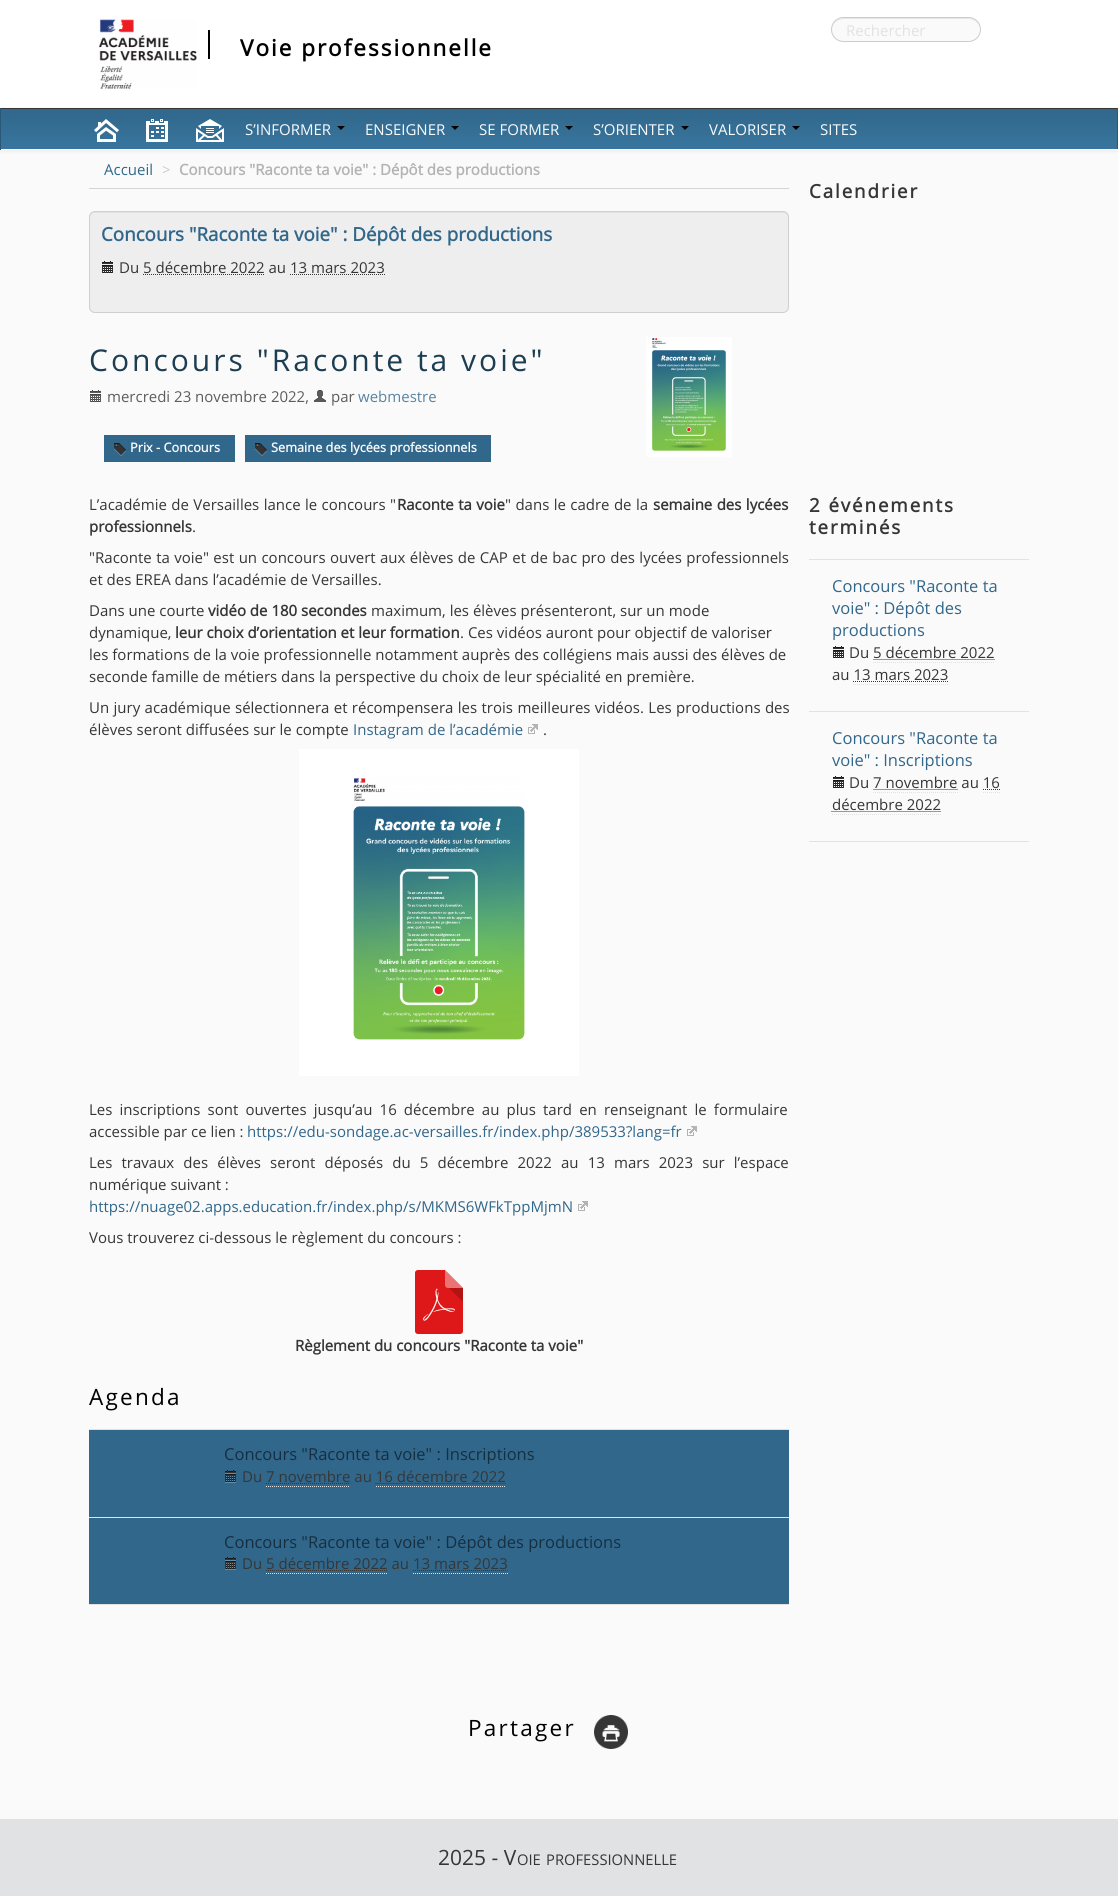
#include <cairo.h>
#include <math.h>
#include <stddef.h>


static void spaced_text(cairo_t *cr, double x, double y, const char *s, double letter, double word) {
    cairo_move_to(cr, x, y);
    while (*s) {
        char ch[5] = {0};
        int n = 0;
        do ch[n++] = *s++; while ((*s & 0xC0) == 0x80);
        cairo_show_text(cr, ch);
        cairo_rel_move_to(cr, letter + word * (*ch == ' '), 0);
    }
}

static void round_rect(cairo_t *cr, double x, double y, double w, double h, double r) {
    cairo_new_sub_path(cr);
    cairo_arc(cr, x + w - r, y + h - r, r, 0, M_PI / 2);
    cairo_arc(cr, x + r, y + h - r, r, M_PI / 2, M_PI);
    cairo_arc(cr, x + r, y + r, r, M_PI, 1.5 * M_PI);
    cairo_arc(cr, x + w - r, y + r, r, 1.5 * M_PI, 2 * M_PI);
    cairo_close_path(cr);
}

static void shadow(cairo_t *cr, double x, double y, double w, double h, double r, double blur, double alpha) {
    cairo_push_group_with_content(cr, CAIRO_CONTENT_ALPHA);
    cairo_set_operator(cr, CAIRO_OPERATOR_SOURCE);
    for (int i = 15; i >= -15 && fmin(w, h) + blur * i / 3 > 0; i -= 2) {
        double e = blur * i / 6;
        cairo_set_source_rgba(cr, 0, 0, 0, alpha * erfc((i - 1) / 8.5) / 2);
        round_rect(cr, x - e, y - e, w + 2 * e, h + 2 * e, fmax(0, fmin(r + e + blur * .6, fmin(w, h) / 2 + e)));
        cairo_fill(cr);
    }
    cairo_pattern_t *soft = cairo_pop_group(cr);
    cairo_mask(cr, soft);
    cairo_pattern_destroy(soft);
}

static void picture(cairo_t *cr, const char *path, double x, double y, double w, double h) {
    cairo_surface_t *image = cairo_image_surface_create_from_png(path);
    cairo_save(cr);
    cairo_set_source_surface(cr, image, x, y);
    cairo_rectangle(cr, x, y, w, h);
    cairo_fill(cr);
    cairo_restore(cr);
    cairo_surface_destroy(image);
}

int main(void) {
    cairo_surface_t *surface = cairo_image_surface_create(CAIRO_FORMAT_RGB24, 1118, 1896);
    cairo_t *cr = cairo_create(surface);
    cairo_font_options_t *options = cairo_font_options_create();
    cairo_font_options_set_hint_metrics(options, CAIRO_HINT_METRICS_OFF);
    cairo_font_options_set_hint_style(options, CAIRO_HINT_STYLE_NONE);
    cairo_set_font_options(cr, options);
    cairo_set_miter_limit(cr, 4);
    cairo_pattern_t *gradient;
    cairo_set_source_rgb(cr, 0.98, 0.98, 0.98);
    cairo_paint(cr);
    cairo_set_source_rgb(cr, 0, 0, 0);
    shadow(cr, 0, 109, 1118, 42, 0, 2, 0.07);
    cairo_set_source_rgb(cr, 1, 1, 1);
    cairo_rectangle(cr, 0, 0, 1118, 107);
    cairo_fill(cr);
    cairo_set_source_rgb(cr, 0.98, 0.98, 0.98);
    cairo_rectangle(cr, 0, 107, 1118, 1);
    cairo_fill(cr);
    round_rect(cr, 831, 17, 150, 25, 12.5);
    cairo_fill(cr);
    cairo_set_source_rgb(cr, 0.906, 0.906, 0.906);
    cairo_new_path(cr);
    cairo_move_to(cr, 844, 19);
    cairo_line_to(cr, 968, 19);
    cairo_curve_to(cr, 975, 19, 980, 24, 980, 30);
    cairo_curve_to(cr, 980, 13, 956, 18, 948, 18);
    cairo_line_to(cr, 864, 18);
    cairo_curve_to(cr, 856, 18, 832, 13, 832, 30);
    cairo_curve_to(cr, 832, 24, 837, 19, 844, 19);
    cairo_close_path(cr);
    cairo_fill(cr);
    round_rect(cr, 831.5, 17.5, 149, 24, 12);
    cairo_set_source_rgb(cr, 0.8, 0.8, 0.8);
    cairo_set_line_width(cr, 1);
    cairo_stroke(cr);
    cairo_select_font_face(cr, "Open Sans", CAIRO_FONT_SLANT_NORMAL, CAIRO_FONT_WEIGHT_NORMAL);
    cairo_set_font_size(cr, 15);
    cairo_set_source_rgb(cr, 0.878, 0.886, 0.894);
    cairo_move_to(cr, 846, 36);
    cairo_show_text(cr, "Rechercher");
    picture(cr, "img1.png", 98, 19, 99, 70);
    cairo_set_source_rgb(cr, 0, 0, 0);
    cairo_rectangle(cr, 208, 30, 2, 29);
    cairo_fill(cr);
    cairo_select_font_face(cr, "Open Sans", CAIRO_FONT_SLANT_NORMAL, CAIRO_FONT_WEIGHT_BOLD);
    cairo_set_font_size(cr, 22.5);
    spaced_text(cr, 240, 56, "Voie professionnelle", 2, 0);
    gradient = cairo_pattern_create_linear(559, 109, 559, 149);
    cairo_pattern_add_color_stop_rgba(gradient, 0, 0.192, 0.404, 0.545, 1);
    cairo_pattern_add_color_stop_rgba(gradient, 1, 0.22, 0.459, 0.62, 1);
    cairo_set_source(cr, gradient);
    cairo_pattern_destroy(gradient);
    cairo_rectangle(cr, 1, 109, 1116, 40);
    cairo_fill(cr);
    cairo_set_source_rgb(cr, 0.212, 0.212, 0.212);
    cairo_rectangle(cr, 0, 108, 1118, 1);
    cairo_fill(cr);
    cairo_set_source_rgb(cr, 0.165, 0.349, 0.471);
    cairo_rectangle(cr, 1117, 108, 1, 42);
    cairo_fill(cr);
    cairo_set_source_rgb(cr, 0.98, 0.98, 0.98);
    cairo_rectangle(cr, 0, 149, 1118, 1);
    cairo_fill(cr);
    cairo_set_source_rgb(cr, 0.165, 0.349, 0.471);
    cairo_rectangle(cr, 0, 108, 1, 42);
    cairo_fill(cr);
    picture(cr, "img2.png", 94, 119, 25, 23);
    picture(cr, "img3.png", 146, 119, 22, 23);
    picture(cr, "img4.png", 196, 119, 28, 23);
    cairo_select_font_face(cr, "Open Sans", CAIRO_FONT_SLANT_NORMAL, CAIRO_FONT_WEIGHT_NORMAL);
    cairo_set_font_size(cr, 15);
    cairo_set_source_rgb(cr, 0.98, 0.98, 0.98);
    cairo_move_to(cr, 245, 135);
    cairo_show_text(cr, "S’INFORMER");
    cairo_set_source_rgb(cr, 0, 0, 0);
    cairo_new_path(cr);
    cairo_move_to(cr, 337, 126);
    cairo_line_to(cr, 345, 126);
    cairo_line_to(cr, 341, 130);
    cairo_close_path(cr);
    cairo_fill(cr);
    cairo_set_source_rgb(cr, 0.98, 0.98, 0.98);
    cairo_move_to(cr, 365, 135);
    cairo_show_text(cr, "ENSEIGNER");
    cairo_set_source_rgb(cr, 0, 0, 0);
    cairo_new_path(cr);
    cairo_move_to(cr, 451, 126);
    cairo_line_to(cr, 459, 126);
    cairo_line_to(cr, 455, 130);
    cairo_close_path(cr);
    cairo_fill(cr);
    cairo_set_source_rgb(cr, 0.98, 0.98, 0.98);
    cairo_move_to(cr, 479, 135);
    cairo_show_text(cr, "SE FORMER");
    cairo_set_source_rgb(cr, 0, 0, 0);
    cairo_new_path(cr);
    cairo_move_to(cr, 565, 126);
    cairo_line_to(cr, 573, 126);
    cairo_line_to(cr, 569, 130);
    cairo_close_path(cr);
    cairo_fill(cr);
    cairo_set_source_rgb(cr, 0.98, 0.98, 0.98);
    cairo_move_to(cr, 593, 135);
    cairo_show_text(cr, "S’ORIENTER");
    cairo_set_source_rgb(cr, 0, 0, 0);
    cairo_new_path(cr);
    cairo_move_to(cr, 681, 126);
    cairo_line_to(cr, 689, 126);
    cairo_line_to(cr, 685, 130);
    cairo_close_path(cr);
    cairo_fill(cr);
    cairo_set_source_rgb(cr, 0.98, 0.98, 0.98);
    cairo_move_to(cr, 709, 135);
    cairo_show_text(cr, "VALORISER");
    cairo_set_source_rgb(cr, 0, 0, 0);
    cairo_new_path(cr);
    cairo_move_to(cr, 792, 126);
    cairo_line_to(cr, 800, 126);
    cairo_line_to(cr, 796, 130);
    cairo_close_path(cr);
    cairo_fill(cr);
    cairo_set_source_rgb(cr, 0.98, 0.98, 0.98);
    cairo_move_to(cr, 820, 135);
    cairo_show_text(cr, "SITES");
    cairo_set_source_rgb(cr, 0.831, 0.831, 0.831);
    cairo_rectangle(cr, 89, 188, 700, 1);
    cairo_fill(cr);
    cairo_set_source_rgb(cr, 0.192, 0.404, 0.545);
    cairo_move_to(cr, 104, 175);
    cairo_show_text(cr, "Accueil");
    cairo_set_source_rgb(cr, 0.8, 0.8, 0.8);
    cairo_move_to(cr, 162, 175);
    cairo_show_text(cr, ">");
    cairo_select_font_face(cr, "Open Sans", CAIRO_FONT_SLANT_NORMAL, CAIRO_FONT_WEIGHT_BOLD);
    cairo_set_source_rgb(cr, 0.702, 0.702, 0.702);
    cairo_move_to(cr, 179, 175);
    cairo_show_text(cr, "Concours \"Raconte ta voie\" : Dépôt des productions");
    cairo_set_source_rgb(cr, 0.933, 0.933, 0.933);
    round_rect(cr, 89, 211, 700, 102, 6);
    cairo_fill(cr);
    cairo_set_source_rgb(cr, 0.886, 0.886, 0.886);
    cairo_new_path(cr);
    cairo_move_to(cr, 95, 213);
    cairo_line_to(cr, 783, 213);
    cairo_curve_to(cr, 786, 213, 788, 215, 788, 218);
    cairo_line_to(cr, 788, 217);
    cairo_curve_to(cr, 788, 214, 786, 212, 783, 212);
    cairo_line_to(cr, 95, 212);
    cairo_curve_to(cr, 92, 212, 90, 214, 90, 217);
    cairo_line_to(cr, 90, 218);
    cairo_curve_to(cr, 90, 215, 92, 213, 95, 213);
    cairo_close_path(cr);
    cairo_fill(cr);
    round_rect(cr, 89.5, 211.5, 699, 101, 5.5);
    cairo_set_source_rgb(cr, 0.804, 0.816, 0.827);
    cairo_stroke(cr);
    cairo_set_font_size(cr, 18.75);
    cairo_set_source_rgb(cr, 0.192, 0.404, 0.545);
    cairo_move_to(cr, 101, 241);
    cairo_show_text(cr, "Concours \"Raconte ta voie\" : Dépôt des productions");
    picture(cr, "img5.png", 102, 261, 11, 13);
    cairo_select_font_face(cr, "Open Sans", CAIRO_FONT_SLANT_NORMAL, CAIRO_FONT_WEIGHT_NORMAL);
    cairo_set_font_size(cr, 15);
    cairo_set_source_rgb(cr, 0.212, 0.212, 0.212);
    cairo_move_to(cr, 119, 273);
    cairo_show_text(cr, "Du 5 décembre 2022 au 13 mars 2023");
    cairo_new_path(cr);
    cairo_move_to(cr, 143, 274.5);
    cairo_line_to(cr, 264.5, 274.5);
    cairo_set_dash(cr, (double[]){1, 1}, 2, 0);
    cairo_stroke(cr);
    cairo_new_path(cr);
    cairo_move_to(cr, 290, 274.5);
    cairo_line_to(cr, 385, 274.5);
    cairo_stroke(cr);
    cairo_new_path(cr);
    cairo_move_to(cr, 143, 277.5);
    cairo_line_to(cr, 265, 277.5);
    cairo_set_source_rgb(cr, 0.878, 0.886, 0.894);
    cairo_stroke(cr);
    cairo_new_path(cr);
    cairo_move_to(cr, 290, 277.5);
    cairo_line_to(cr, 385, 277.5);
    cairo_stroke(cr);
    cairo_set_font_size(cr, 30);
    cairo_set_source_rgb(cr, 0.114, 0.239, 0.322);
    spaced_text(cr, 89, 371, "Concours \"Raconte ta voie\"", 3, 0);
    picture(cr, "img6.png", 646, 337, 86, 120);
    picture(cr, "img7.png", 90, 390, 11, 12);
    cairo_set_font_size(cr, 15);
    cairo_set_source_rgb(cr, 0.365, 0.365, 0.365);
    cairo_move_to(cr, 107, 402);
    cairo_show_text(cr, "mercredi 23 novembre 2022,");
    picture(cr, "img8.png", 314, 390, 12, 12);
    cairo_move_to(cr, 331, 402);
    cairo_show_text(cr, "par");
    cairo_set_source_rgb(cr, 0.349, 0.518, 0.631);
    cairo_move_to(cr, 358, 402);
    cairo_show_text(cr, "webmestre");
    cairo_set_source_rgb(cr, 0.192, 0.404, 0.545);
    cairo_rectangle(cr, 104, 435, 131, 27);
    cairo_fill(cr);
    picture(cr, "img9.png", 114, 443, 12, 13);
    cairo_select_font_face(cr, "Open Sans", CAIRO_FONT_SLANT_NORMAL, CAIRO_FONT_WEIGHT_BOLD);
    cairo_set_font_size(cr, 12.75);
    cairo_set_source_rgb(cr, 0.98, 0.98, 0.98);
    cairo_move_to(cr, 130, 452);
    cairo_show_text(cr, "Prix - Concours");
    cairo_set_source_rgb(cr, 0.192, 0.404, 0.545);
    cairo_rectangle(cr, 245, 435, 246, 27);
    cairo_fill(cr);
    picture(cr, "img9.png", 255, 443, 12, 13);
    cairo_set_source_rgb(cr, 0.98, 0.98, 0.98);
    cairo_move_to(cr, 271, 452);
    cairo_show_text(cr, "Semaine des lycées professionnels");
    cairo_select_font_face(cr, "Open Sans", CAIRO_FONT_SLANT_NORMAL, CAIRO_FONT_WEIGHT_NORMAL);
    cairo_set_font_size(cr, 15);
    cairo_set_source_rgb(cr, 0.212, 0.212, 0.212);
    spaced_text(cr, 89, 510, "L’académie de Versailles lance le concours \"", 0, 0.5);
    cairo_select_font_face(cr, "Open Sans", CAIRO_FONT_SLANT_NORMAL, CAIRO_FONT_WEIGHT_BOLD);
    spaced_text(cr, 397, 510, "Raconte ta voie", 0, 0.5);
    cairo_select_font_face(cr, "Open Sans", CAIRO_FONT_SLANT_NORMAL, CAIRO_FONT_WEIGHT_NORMAL);
    spaced_text(cr, 505, 510, "\" dans le cadre de la", 0, 0.5);
    cairo_select_font_face(cr, "Open Sans", CAIRO_FONT_SLANT_NORMAL, CAIRO_FONT_WEIGHT_BOLD);
    spaced_text(cr, 653, 510, "semaine des lycées", 0, 0.5);
    cairo_move_to(cr, 89, 532);
    cairo_show_text(cr, "professionnels");
    cairo_select_font_face(cr, "Open Sans", CAIRO_FONT_SLANT_NORMAL, CAIRO_FONT_WEIGHT_NORMAL);
    cairo_move_to(cr, 192, 532);
    cairo_show_text(cr, ".");
    spaced_text(cr, 89, 563, "\"Raconte ta voie\" est un concours ouvert aux élèves de CAP et de bac pro des lycées professionnels", 0, 0.5);
    cairo_move_to(cr, 89, 585);
    cairo_show_text(cr, "et des EREA dans l’académie de Versailles.");
    cairo_move_to(cr, 89, 616);
    cairo_show_text(cr, "Dans une courte");
    cairo_select_font_face(cr, "Open Sans", CAIRO_FONT_SLANT_NORMAL, CAIRO_FONT_WEIGHT_BOLD);
    cairo_move_to(cr, 208, 616);
    cairo_show_text(cr, "vidéo de 180 secondes");
    cairo_select_font_face(cr, "Open Sans", CAIRO_FONT_SLANT_NORMAL, CAIRO_FONT_WEIGHT_NORMAL);
    cairo_move_to(cr, 371, 616);
    cairo_show_text(cr, "maximum, les élèves présenteront, sur un mode");
    cairo_move_to(cr, 89, 638);
    cairo_show_text(cr, "dynamique,");
    cairo_select_font_face(cr, "Open Sans", CAIRO_FONT_SLANT_NORMAL, CAIRO_FONT_WEIGHT_BOLD);
    cairo_move_to(cr, 175, 638);
    cairo_show_text(cr, "leur choix d’orientation et leur formation");
    cairo_select_font_face(cr, "Open Sans", CAIRO_FONT_SLANT_NORMAL, CAIRO_FONT_WEIGHT_NORMAL);
    cairo_move_to(cr, 460, 638);
    cairo_show_text(cr, ". Ces vidéos auront pour objectif de valoriser");
    cairo_move_to(cr, 89, 660);
    cairo_show_text(cr, "les formations de la voie professionnelle notamment auprès des collégiens mais aussi des élèves de");
    cairo_move_to(cr, 89, 682);
    cairo_show_text(cr, "seconde famille de métiers dans la perspective du choix de leur spécialité en première.");
    spaced_text(cr, 89, 713, "Un jury académique sélectionnera et récompensera les trois meilleures vidéos. Les productions des", 0, 0.5);
    cairo_move_to(cr, 89, 735);
    cairo_show_text(cr, "élèves seront diffusées sur le compte");
    cairo_set_source_rgb(cr, 0.192, 0.404, 0.545);
    cairo_move_to(cr, 353, 735);
    cairo_show_text(cr, "Instagram de l’académie");
    picture(cr, "img10.png", 528, 724, 10, 10);
    cairo_set_source_rgb(cr, 0.212, 0.212, 0.212);
    cairo_move_to(cr, 543, 735);
    cairo_show_text(cr, ".");
    cairo_set_source_rgb(cr, 1, 1, 1);
    cairo_rectangle(cr, 299, 749, 280, 327);
    cairo_fill(cr);
    picture(cr, "img11.png", 353, 778, 172, 262);
    cairo_set_source_rgb(cr, 0.212, 0.212, 0.212);
    spaced_text(cr, 89, 1115, "Les inscriptions sont ouvertes jusqu’au 16 décembre au plus tard en renseignant le formulaire", 0, 3.25);
    cairo_move_to(cr, 89, 1137);
    cairo_show_text(cr, "accessible par ce lien :");
    cairo_set_source_rgb(cr, 0.192, 0.404, 0.545);
    cairo_move_to(cr, 247, 1137);
    cairo_show_text(cr, "https://edu-sondage.ac-versailles.fr/index.php/389533?lang=fr");
    picture(cr, "img10.png", 687, 1126, 10, 10);
    cairo_set_source_rgb(cr, 0.212, 0.212, 0.212);
    spaced_text(cr, 89, 1168, "Les travaux des élèves seront déposés du 5 décembre 2022 au 13 mars 2023 sur l’espace", 0, 5.25);
    cairo_move_to(cr, 89, 1190);
    cairo_show_text(cr, "numérique suivant :");
    cairo_set_source_rgb(cr, 0.192, 0.404, 0.545);
    cairo_move_to(cr, 89, 1212);
    cairo_show_text(cr, "https://nuage02.apps.education.fr/index.php/s/MKMS6WFkTppMjmN");
    picture(cr, "img10.png", 578, 1201, 10, 10);
    cairo_set_source_rgb(cr, 0.212, 0.212, 0.212);
    cairo_move_to(cr, 89, 1243);
    cairo_show_text(cr, "Vous trouverez ci-dessous le règlement du concours :");
    picture(cr, "img12.png", 415, 1270, 48, 64);
    cairo_select_font_face(cr, "Open Sans", CAIRO_FONT_SLANT_NORMAL, CAIRO_FONT_WEIGHT_BOLD);
    cairo_move_to(cr, 295, 1351);
    cairo_show_text(cr, "Règlement du concours \"Raconte ta voie\"");
    cairo_select_font_face(cr, "Open Sans", CAIRO_FONT_SLANT_NORMAL, CAIRO_FONT_WEIGHT_NORMAL);
    cairo_set_font_size(cr, 22.5);
    cairo_set_source_rgb(cr, 0, 0, 0);
    spaced_text(cr, 89, 1405, "Agenda", 2.25, 0);
    cairo_set_source_rgb(cr, 0.192, 0.404, 0.545);
    cairo_rectangle(cr, 89, 1430, 700, 87);
    cairo_fill(cr);
    cairo_set_source_rgb(cr, 0.878, 0.886, 0.894);
    cairo_rectangle(cr, 89, 1429, 700, 1);
    cairo_fill(cr);
    cairo_set_font_size(cr, 16.5);
    cairo_set_source_rgb(cr, 0.086, 0.184, 0.251);
    cairo_move_to(cr, 224, 1460);
    cairo_show_text(cr, "Concours \"Raconte ta voie\" : Inscriptions");
    picture(cr, "img13.png", 225, 1470, 11, 13);
    cairo_set_font_size(cr, 15);
    cairo_set_source_rgb(cr, 0.212, 0.212, 0.212);
    cairo_move_to(cr, 242, 1482);
    cairo_show_text(cr, "Du 7 novembre au 16 décembre 2022");
    cairo_new_path(cr);
    cairo_move_to(cr, 266, 1483.5);
    cairo_line_to(cr, 350.5, 1483.5);
    cairo_stroke(cr);
    cairo_new_path(cr);
    cairo_move_to(cr, 375.5, 1483.5);
    cairo_line_to(cr, 506, 1483.5);
    cairo_stroke(cr);
    cairo_new_path(cr);
    cairo_move_to(cr, 266, 1486.5);
    cairo_line_to(cr, 350, 1486.5);
    cairo_set_source_rgb(cr, 0.878, 0.886, 0.894);
    cairo_stroke(cr);
    cairo_new_path(cr);
    cairo_move_to(cr, 376, 1486.5);
    cairo_line_to(cr, 506, 1486.5);
    cairo_stroke(cr);
    cairo_set_source_rgb(cr, 0.192, 0.404, 0.545);
    cairo_rectangle(cr, 89, 1518, 700, 86);
    cairo_fill(cr);
    cairo_set_source_rgb(cr, 0.878, 0.886, 0.894);
    cairo_rectangle(cr, 89, 1517, 700, 1);
    cairo_fill(cr);
    cairo_rectangle(cr, 89, 1604, 700, 1);
    cairo_fill(cr);
    cairo_set_font_size(cr, 16.5);
    cairo_set_source_rgb(cr, 0.086, 0.184, 0.251);
    cairo_move_to(cr, 224, 1548);
    cairo_show_text(cr, "Concours \"Raconte ta voie\" : Dépôt des productions");
    picture(cr, "img13.png", 225, 1557, 11, 13);
    cairo_set_font_size(cr, 15);
    cairo_set_source_rgb(cr, 0.212, 0.212, 0.212);
    cairo_move_to(cr, 242, 1569);
    cairo_show_text(cr, "Du 5 décembre 2022 au 13 mars 2023");
    cairo_new_path(cr);
    cairo_move_to(cr, 266, 1570.5);
    cairo_line_to(cr, 387.5, 1570.5);
    cairo_stroke(cr);
    cairo_new_path(cr);
    cairo_move_to(cr, 413, 1570.5);
    cairo_line_to(cr, 507.5, 1570.5);
    cairo_stroke(cr);
    cairo_new_path(cr);
    cairo_move_to(cr, 266, 1573.5);
    cairo_line_to(cr, 387, 1573.5);
    cairo_set_source_rgb(cr, 0.878, 0.886, 0.894);
    cairo_stroke(cr);
    cairo_new_path(cr);
    cairo_move_to(cr, 413, 1573.5);
    cairo_line_to(cr, 508, 1573.5);
    cairo_stroke(cr);
    cairo_select_font_face(cr, "Open Sans", CAIRO_FONT_SLANT_NORMAL, CAIRO_FONT_WEIGHT_BOLD);
    cairo_set_font_size(cr, 18.75);
    cairo_set_source_rgb(cr, 0.212, 0.212, 0.212);
    spaced_text(cr, 809, 198, "Calendrier", 1.9, 0);
    spaced_text(cr, 809, 512, "2 événements", 1.9, 0);
    spaced_text(cr, 809, 534, "terminés", 1.9, 0);
    cairo_set_source_rgb(cr, 0.878, 0.886, 0.894);
    cairo_rectangle(cr, 809, 559, 220, 1);
    cairo_fill(cr);
    cairo_rectangle(cr, 809, 711, 220, 1);
    cairo_fill(cr);
    cairo_select_font_face(cr, "Open Sans", CAIRO_FONT_SLANT_NORMAL, CAIRO_FONT_WEIGHT_NORMAL);
    cairo_set_font_size(cr, 16.5);
    cairo_set_source_rgb(cr, 0.192, 0.404, 0.545);
    cairo_move_to(cr, 832, 592);
    cairo_show_text(cr, "Concours \"Raconte ta");
    cairo_move_to(cr, 832, 614);
    cairo_show_text(cr, "voie\" : Dépôt des");
    cairo_move_to(cr, 832, 636);
    cairo_show_text(cr, "productions");
    picture(cr, "img14.png", 833, 646, 11, 12);
    cairo_set_font_size(cr, 15);
    cairo_set_source_rgb(cr, 0.212, 0.212, 0.212);
    cairo_move_to(cr, 849, 658);
    cairo_show_text(cr, "Du 5 décembre 2022");
    cairo_new_path(cr);
    cairo_move_to(cr, 873.5, 659.5);
    cairo_line_to(cr, 995, 659.5);
    cairo_stroke(cr);
    cairo_new_path(cr);
    cairo_move_to(cr, 873, 662.5);
    cairo_line_to(cr, 995, 662.5);
    cairo_set_source_rgb(cr, 0.878, 0.886, 0.894);
    cairo_stroke(cr);
    cairo_set_source_rgb(cr, 0.212, 0.212, 0.212);
    cairo_move_to(cr, 832, 680);
    cairo_show_text(cr, "au 13 mars 2023");
    cairo_new_path(cr);
    cairo_move_to(cr, 853, 681.5);
    cairo_line_to(cr, 948, 681.5);
    cairo_stroke(cr);
    cairo_new_path(cr);
    cairo_move_to(cr, 853, 684.5);
    cairo_line_to(cr, 948, 684.5);
    cairo_set_source_rgb(cr, 0.878, 0.886, 0.894);
    cairo_stroke(cr);
    cairo_rectangle(cr, 809, 841, 220, 1);
    cairo_fill(cr);
    cairo_set_font_size(cr, 16.5);
    cairo_set_source_rgb(cr, 0.192, 0.404, 0.545);
    cairo_move_to(cr, 832, 744);
    cairo_show_text(cr, "Concours \"Raconte ta");
    cairo_move_to(cr, 832, 766);
    cairo_show_text(cr, "voie\" : Inscriptions");
    picture(cr, "img14.png", 833, 776, 11, 12);
    cairo_set_font_size(cr, 15);
    cairo_set_source_rgb(cr, 0.212, 0.212, 0.212);
    cairo_move_to(cr, 849, 788);
    cairo_show_text(cr, "Du 7 novembre au 16");
    cairo_new_path(cr);
    cairo_move_to(cr, 873.5, 789.5);
    cairo_line_to(cr, 958, 789.5);
    cairo_stroke(cr);
    cairo_new_path(cr);
    cairo_move_to(cr, 873, 792.5);
    cairo_line_to(cr, 958, 792.5);
    cairo_set_source_rgb(cr, 0.878, 0.886, 0.894);
    cairo_stroke(cr);
    cairo_set_source_rgb(cr, 0.212, 0.212, 0.212);
    cairo_move_to(cr, 832, 810);
    cairo_show_text(cr, "décembre 2022");
    cairo_new_path(cr);
    cairo_move_to(cr, 983, 792.5);
    cairo_line_to(cr, 1000, 792.5);
    cairo_set_source_rgb(cr, 0.878, 0.886, 0.894);
    cairo_stroke(cr);
    cairo_new_path(cr);
    cairo_move_to(cr, 832, 814.5);
    cairo_line_to(cr, 941, 814.5);
    cairo_stroke(cr);
    cairo_new_path(cr);
    cairo_move_to(cr, 983, 789.5);
    cairo_line_to(cr, 1000.5, 789.5);
    cairo_set_source_rgb(cr, 0.212, 0.212, 0.212);
    cairo_stroke(cr);
    cairo_new_path(cr);
    cairo_move_to(cr, 831.5, 811.5);
    cairo_line_to(cr, 940.5, 811.5);
    cairo_stroke(cr);
    cairo_set_font_size(cr, 22.5);
    cairo_set_source_rgb(cr, 0, 0, 0);
    spaced_text(cr, 468, 1736, "Partager", 2.25, 0);
    picture(cr, "img15.png", 594, 1715, 34, 34);
    cairo_set_source_rgb(cr, 0.878, 0.886, 0.894);
    cairo_rectangle(cr, 0, 1819, 1118, 77);
    cairo_fill(cr);
    cairo_set_font_size(cr, 21);
    cairo_set_source_rgb(cr, 0.212, 0.212, 0.212);
    cairo_move_to(cr, 438, 1865);
    cairo_show_text(cr, "2025 - V");
    cairo_set_font_size(cr, 14.75);
    cairo_move_to(cr, 517, 1865);
    cairo_show_text(cr, "OIE");
    cairo_move_to(cr, 546, 1865);
    cairo_show_text(cr, "PROFESSIONNELLE");
    cairo_surface_write_to_png(surface, "page.png");
    cairo_font_options_destroy(options);
    cairo_destroy(cr);
    cairo_surface_destroy(surface);
    return 0;
}
